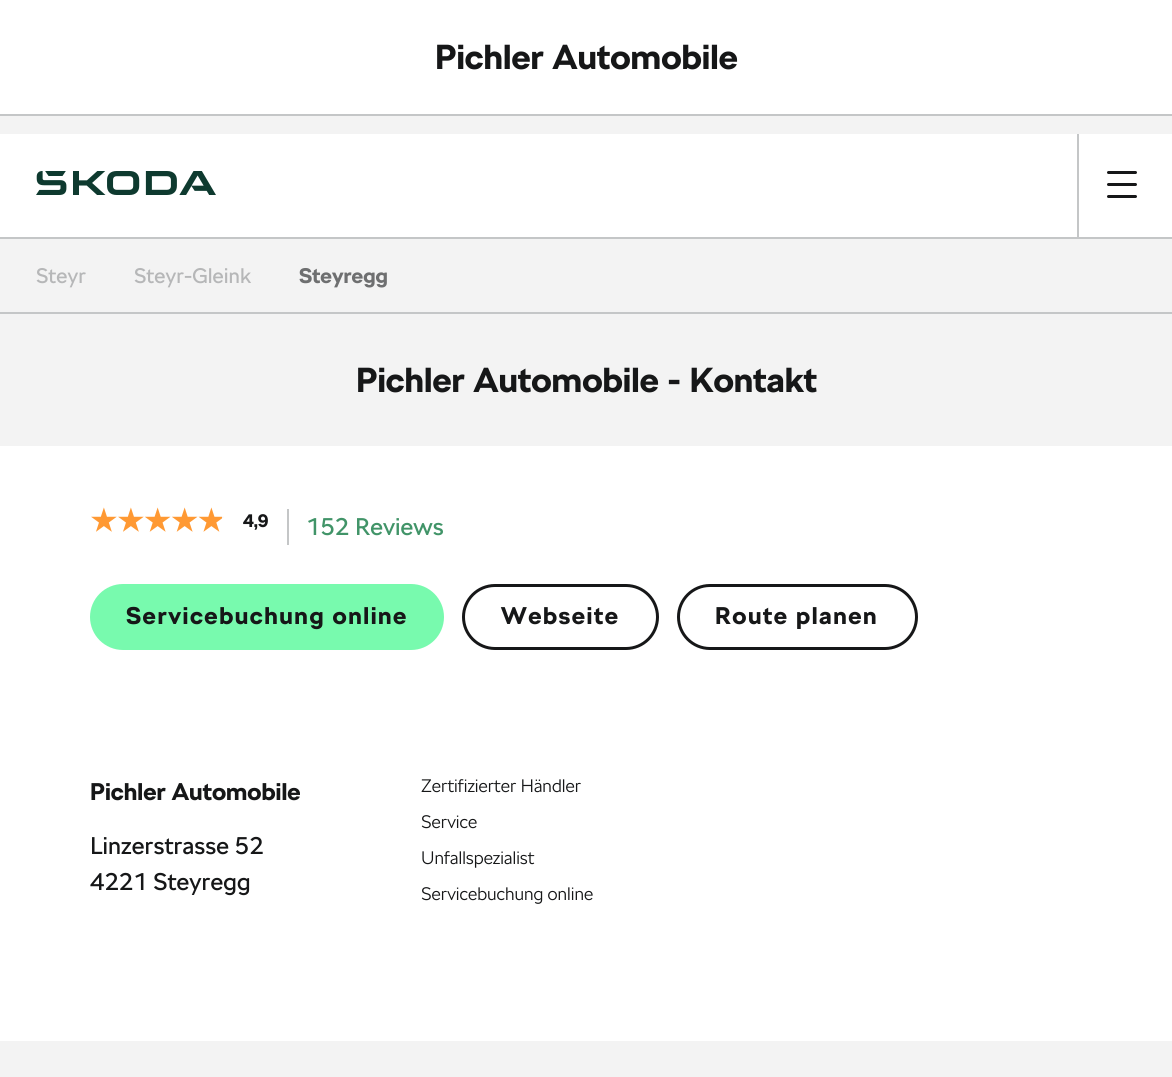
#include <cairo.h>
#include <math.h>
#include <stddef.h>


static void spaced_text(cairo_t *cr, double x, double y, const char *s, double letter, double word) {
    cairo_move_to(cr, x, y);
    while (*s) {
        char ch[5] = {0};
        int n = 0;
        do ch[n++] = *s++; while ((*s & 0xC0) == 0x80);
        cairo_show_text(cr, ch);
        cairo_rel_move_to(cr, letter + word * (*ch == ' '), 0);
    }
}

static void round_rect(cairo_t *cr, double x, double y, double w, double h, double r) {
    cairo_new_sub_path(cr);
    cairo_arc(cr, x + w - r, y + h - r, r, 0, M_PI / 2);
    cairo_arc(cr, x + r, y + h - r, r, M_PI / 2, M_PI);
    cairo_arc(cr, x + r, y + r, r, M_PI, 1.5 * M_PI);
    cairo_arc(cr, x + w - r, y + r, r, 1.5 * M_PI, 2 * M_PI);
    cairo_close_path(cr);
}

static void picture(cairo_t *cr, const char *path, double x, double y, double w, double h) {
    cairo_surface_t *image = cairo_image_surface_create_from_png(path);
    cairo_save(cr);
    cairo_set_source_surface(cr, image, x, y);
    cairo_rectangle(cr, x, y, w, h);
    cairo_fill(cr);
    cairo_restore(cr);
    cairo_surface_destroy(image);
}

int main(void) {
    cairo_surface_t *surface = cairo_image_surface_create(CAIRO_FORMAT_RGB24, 1172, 1077);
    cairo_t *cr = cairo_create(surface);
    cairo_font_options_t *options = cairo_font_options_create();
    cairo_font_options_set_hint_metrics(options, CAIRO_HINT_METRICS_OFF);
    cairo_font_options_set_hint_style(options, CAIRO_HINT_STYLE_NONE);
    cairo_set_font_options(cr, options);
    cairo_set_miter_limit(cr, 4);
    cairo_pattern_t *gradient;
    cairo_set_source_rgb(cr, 0.953, 0.953, 0.953);
    cairo_paint(cr);
    cairo_set_source_rgb(cr, 1, 1, 1);
    cairo_rectangle(cr, 0, 0, 1172, 114);
    cairo_fill(cr);
    cairo_set_source_rgb(cr, 0.769, 0.776, 0.78);
    cairo_rectangle(cr, 0, 114, 1172, 2);
    cairo_fill(cr);
    cairo_select_font_face(cr, "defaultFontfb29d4", CAIRO_FONT_SLANT_NORMAL, CAIRO_FONT_WEIGHT_BOLD);
    cairo_set_font_size(cr, 34.5);
    cairo_set_source_rgb(cr, 0.086, 0.09, 0.094);
    cairo_move_to(cr, 435, 69);
    cairo_show_text(cr, "Pichler Automobile");
    cairo_set_source_rgb(cr, 1, 1, 1);
    cairo_rectangle(cr, 0, 134, 1172, 103);
    cairo_fill(cr);
    cairo_set_source_rgb(cr, 0.769, 0.776, 0.78);
    cairo_rectangle(cr, 0, 237, 1172, 2);
    cairo_fill(cr);
    picture(cr, "img1.png", 36, 171, 180, 24);
    cairo_rectangle(cr, 1077, 134, 2, 105);
    cairo_fill(cr);
    cairo_set_source_rgb(cr, 0.086, 0.09, 0.094);
    round_rect(cr, 1107, 171, 30, 3, 1.5);
    cairo_fill(cr);
    round_rect(cr, 1107, 183, 30, 3, 1.5);
    cairo_fill(cr);
    round_rect(cr, 1107, 195, 30, 3, 1.5);
    cairo_fill(cr);
    cairo_set_source_rgb(cr, 0.769, 0.776, 0.78);
    cairo_rectangle(cr, 0, 312, 1172, 2);
    cairo_fill(cr);
    cairo_select_font_face(cr, "defaultFontfb29d4", CAIRO_FONT_SLANT_NORMAL, CAIRO_FONT_WEIGHT_NORMAL);
    cairo_set_font_size(cr, 21);
    cairo_set_source_rgb(cr, 0.714, 0.718, 0.722);
    cairo_move_to(cr, 36, 283);
    cairo_show_text(cr, "Steyr");
    cairo_move_to(cr, 134, 283);
    cairo_show_text(cr, "Steyr-Gleink");
    cairo_select_font_face(cr, "defaultFontfb29d4", CAIRO_FONT_SLANT_NORMAL, CAIRO_FONT_WEIGHT_BOLD);
    cairo_set_source_rgb(cr, 0.431, 0.435, 0.439);
    cairo_move_to(cr, 299, 283);
    cairo_show_text(cr, "Steyregg");
    cairo_set_font_size(cr, 34.5);
    cairo_set_source_rgb(cr, 0.086, 0.09, 0.094);
    cairo_move_to(cr, 356, 392);
    cairo_show_text(cr, "Pichler Automobile - Kontakt");
    cairo_set_source_rgb(cr, 1, 1, 1);
    cairo_rectangle(cr, 0, 446, 1172, 595);
    cairo_fill(cr);
    cairo_select_font_face(cr, "DejaVu Sans", CAIRO_FONT_SLANT_NORMAL, CAIRO_FONT_WEIGHT_BOLD);
    cairo_set_font_size(cr, 30);
    gradient = cairo_pattern_create_linear(90, 521, 225, 521);
    cairo_pattern_add_color_stop_rgba(gradient, 0.98, 1, 0.6, 0.2, 1);
    cairo_pattern_add_color_stop_rgba(gradient, 0.98, 0.949, 0.949, 0.949, 1);
    cairo_set_source(cr, gradient);
    cairo_pattern_destroy(gradient);
    cairo_move_to(cr, 90, 531);
    cairo_show_text(cr, "★★★★★");
    cairo_select_font_face(cr, "defaultFontfb29d4", CAIRO_FONT_SLANT_NORMAL, CAIRO_FONT_WEIGHT_BOLD);
    cairo_set_font_size(cr, 18);
    cairo_set_source_rgb(cr, 0.086, 0.09, 0.094);
    cairo_move_to(cr, 243, 527);
    cairo_show_text(cr, "4,9");
    cairo_set_source_rgb(cr, 0.769, 0.776, 0.78);
    cairo_rectangle(cr, 287, 509, 2, 36);
    cairo_fill(cr);
    cairo_select_font_face(cr, "defaultFontfb29d4", CAIRO_FONT_SLANT_NORMAL, CAIRO_FONT_WEIGHT_NORMAL);
    cairo_set_font_size(cr, 24);
    cairo_set_source_rgb(cr, 0.255, 0.58, 0.408);
    cairo_move_to(cr, 306, 535);
    cairo_show_text(cr, "152 Reviews");
    cairo_set_source_rgb(cr, 0.471, 0.98, 0.682);
    round_rect(cr, 90, 584, 354, 66, 33);
    cairo_fill(cr);
    cairo_select_font_face(cr, "defaultFontfb29d4", CAIRO_FONT_SLANT_NORMAL, CAIRO_FONT_WEIGHT_BOLD);
    cairo_set_source_rgb(cr, 0.086, 0.09, 0.094);
    spaced_text(cr, 126, 624, "Servicebuchung online", 1.5, 0);
    round_rect(cr, 463.5, 585.5, 194, 63, 31.5);
    cairo_set_line_width(cr, 3);
    cairo_stroke(cr);
    spaced_text(cr, 501, 624, "Webseite", 1.5, 0);
    round_rect(cr, 678.5, 585.5, 238, 63, 31.5);
    cairo_stroke(cr);
    spaced_text(cr, 715, 624, "Route planen", 1.5, 0);
    cairo_move_to(cr, 90, 800);
    cairo_show_text(cr, "Pichler Automobile");
    cairo_select_font_face(cr, "defaultFontfb29d4", CAIRO_FONT_SLANT_NORMAL, CAIRO_FONT_WEIGHT_NORMAL);
    cairo_move_to(cr, 90, 854);
    cairo_show_text(cr, "Linzerstrasse 52");
    cairo_move_to(cr, 90, 890);
    cairo_show_text(cr, "4221 Steyregg");
    cairo_select_font_face(cr, "defaultFontfb29d4 Light", CAIRO_FONT_SLANT_NORMAL, CAIRO_FONT_WEIGHT_NORMAL);
    cairo_set_font_size(cr, 18);
    cairo_move_to(cr, 421, 792);
    cairo_show_text(cr, "Zertifizierter Händler");
    cairo_move_to(cr, 421, 828);
    cairo_show_text(cr, "Service");
    cairo_move_to(cr, 421, 864);
    cairo_show_text(cr, "Unfallspezialist");
    cairo_move_to(cr, 421, 900);
    cairo_show_text(cr, "Servicebuchung online");
    cairo_surface_write_to_png(surface, "page.png");
    cairo_font_options_destroy(options);
    cairo_destroy(cr);
    cairo_surface_destroy(surface);
    return 0;
}
